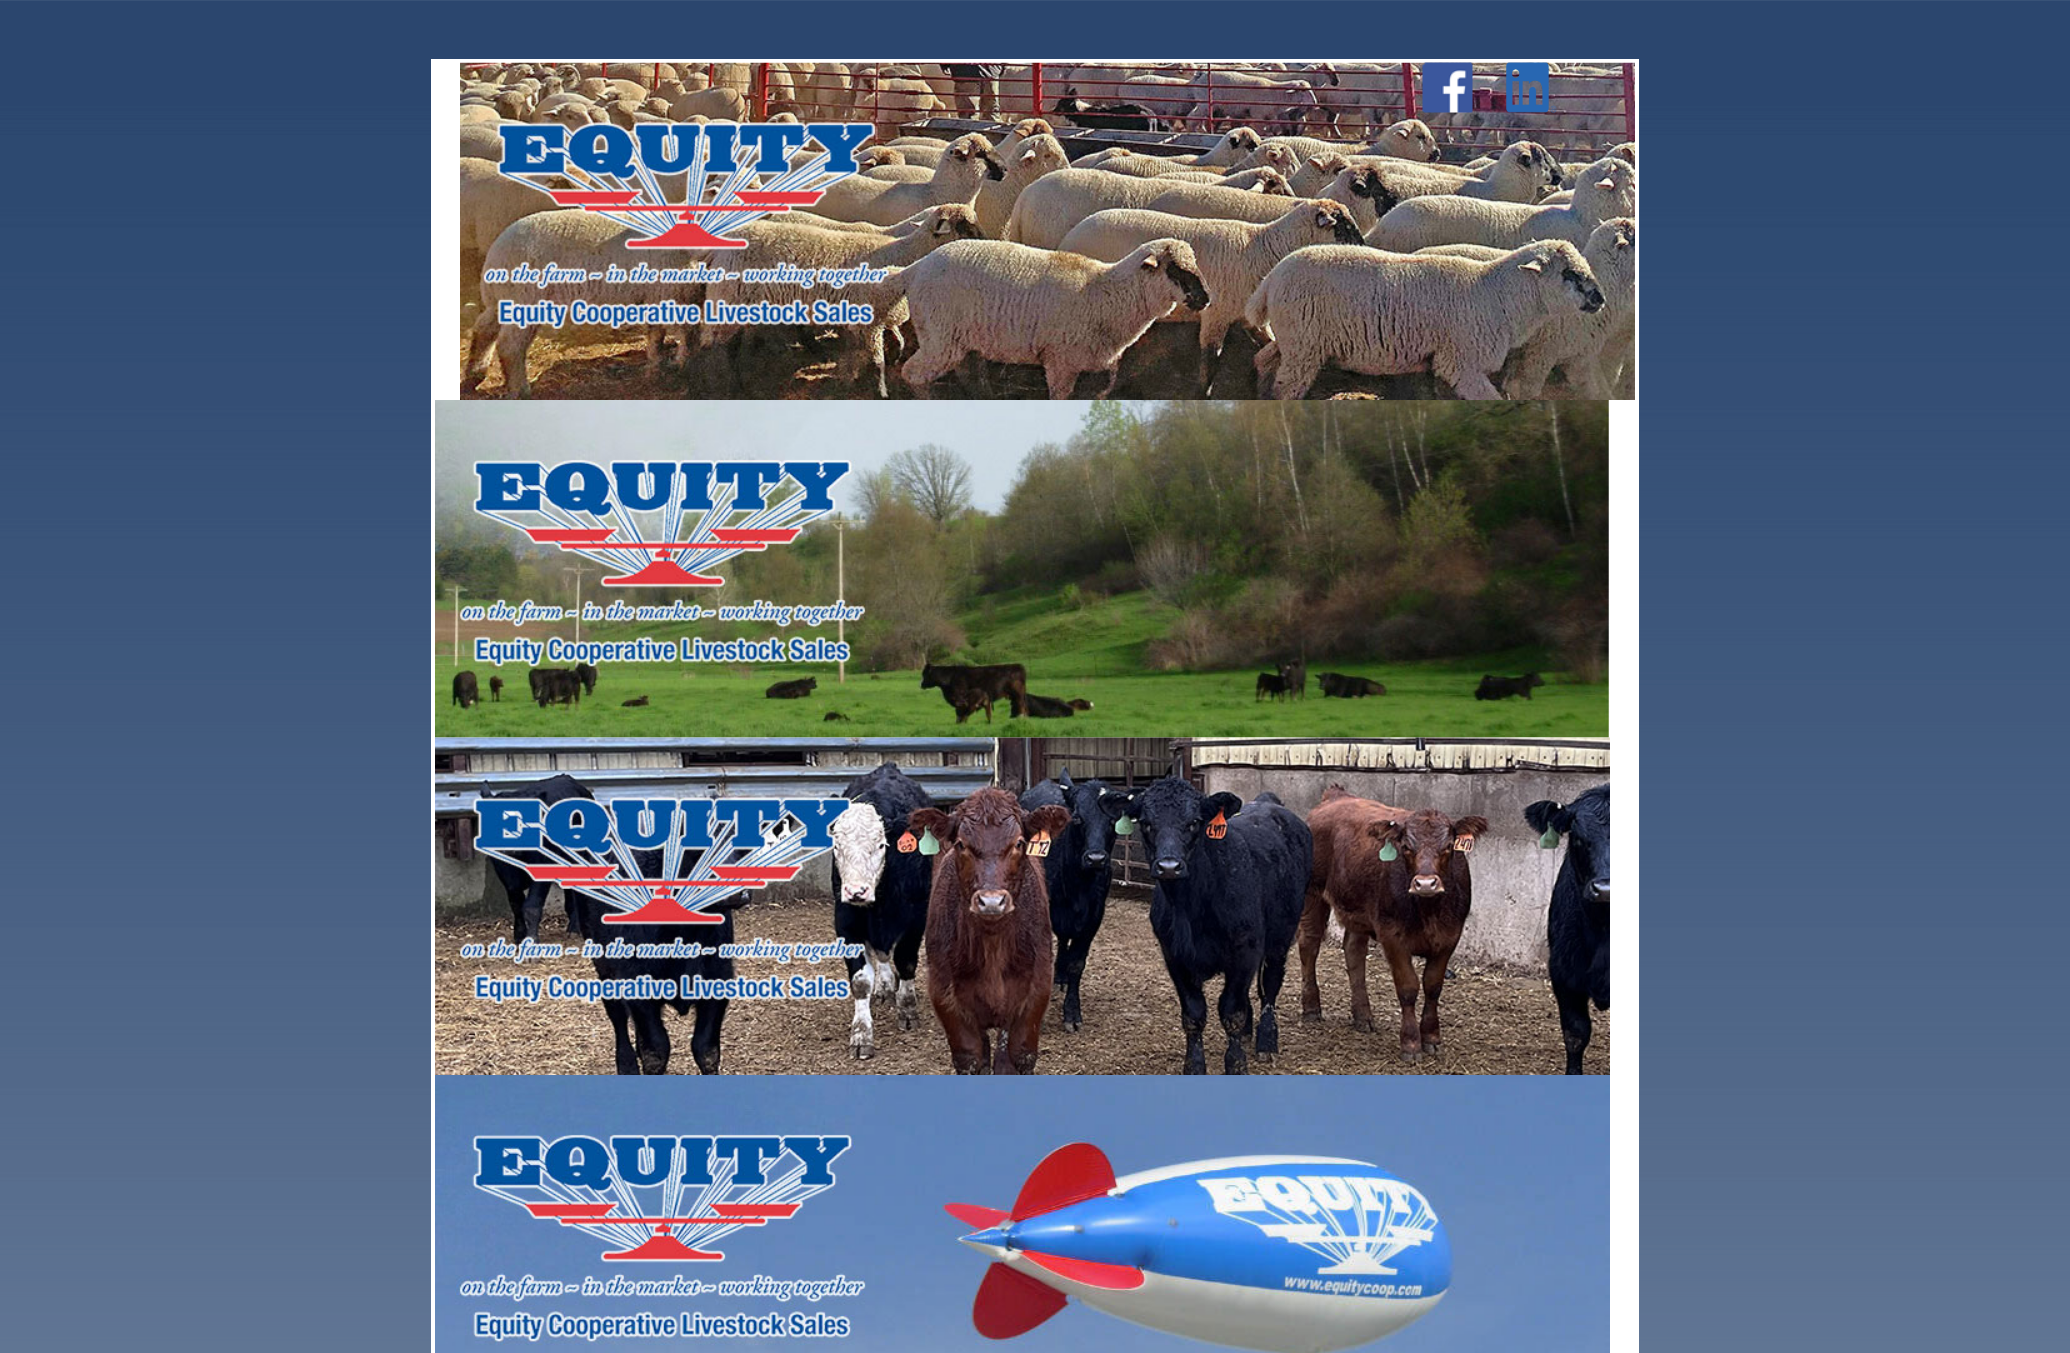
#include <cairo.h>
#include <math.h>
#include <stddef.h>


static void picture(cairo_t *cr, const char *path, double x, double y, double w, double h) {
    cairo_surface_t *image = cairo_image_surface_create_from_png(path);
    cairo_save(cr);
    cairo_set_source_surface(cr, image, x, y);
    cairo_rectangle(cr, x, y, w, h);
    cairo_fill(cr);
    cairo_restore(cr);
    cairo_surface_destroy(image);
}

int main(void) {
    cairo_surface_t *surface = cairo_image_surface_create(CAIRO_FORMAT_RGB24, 2070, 1353);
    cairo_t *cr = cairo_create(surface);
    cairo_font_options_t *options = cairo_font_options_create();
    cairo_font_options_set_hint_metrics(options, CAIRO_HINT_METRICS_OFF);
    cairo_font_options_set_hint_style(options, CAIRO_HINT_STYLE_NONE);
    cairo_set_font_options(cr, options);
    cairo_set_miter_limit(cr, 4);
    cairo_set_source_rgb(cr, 1, 1, 1);
    cairo_paint(cr);
    picture(cr, "img1.png", 0, 0, 2070, 1353);
    cairo_set_source_rgb(cr, 1, 1, 1);
    cairo_rectangle(cr, 431, 59, 1208, 1294);
    cairo_fill(cr);
    picture(cr, "img2.png", 460, 62, 1175, 338);
    picture(cr, "img3.png", 435, 400, 1175, 338);
    picture(cr, "img4.png", 435, 737, 1175, 338);
    picture(cr, "img5.png", 435, 1075, 1175, 278);
    picture(cr, "img6.png", 1422, 62, 51, 51);
    picture(cr, "img7.png", 1506, 62, 51, 51);
    cairo_surface_write_to_png(surface, "page.png");
    cairo_font_options_destroy(options);
    cairo_destroy(cr);
    cairo_surface_destroy(surface);
    return 0;
}
